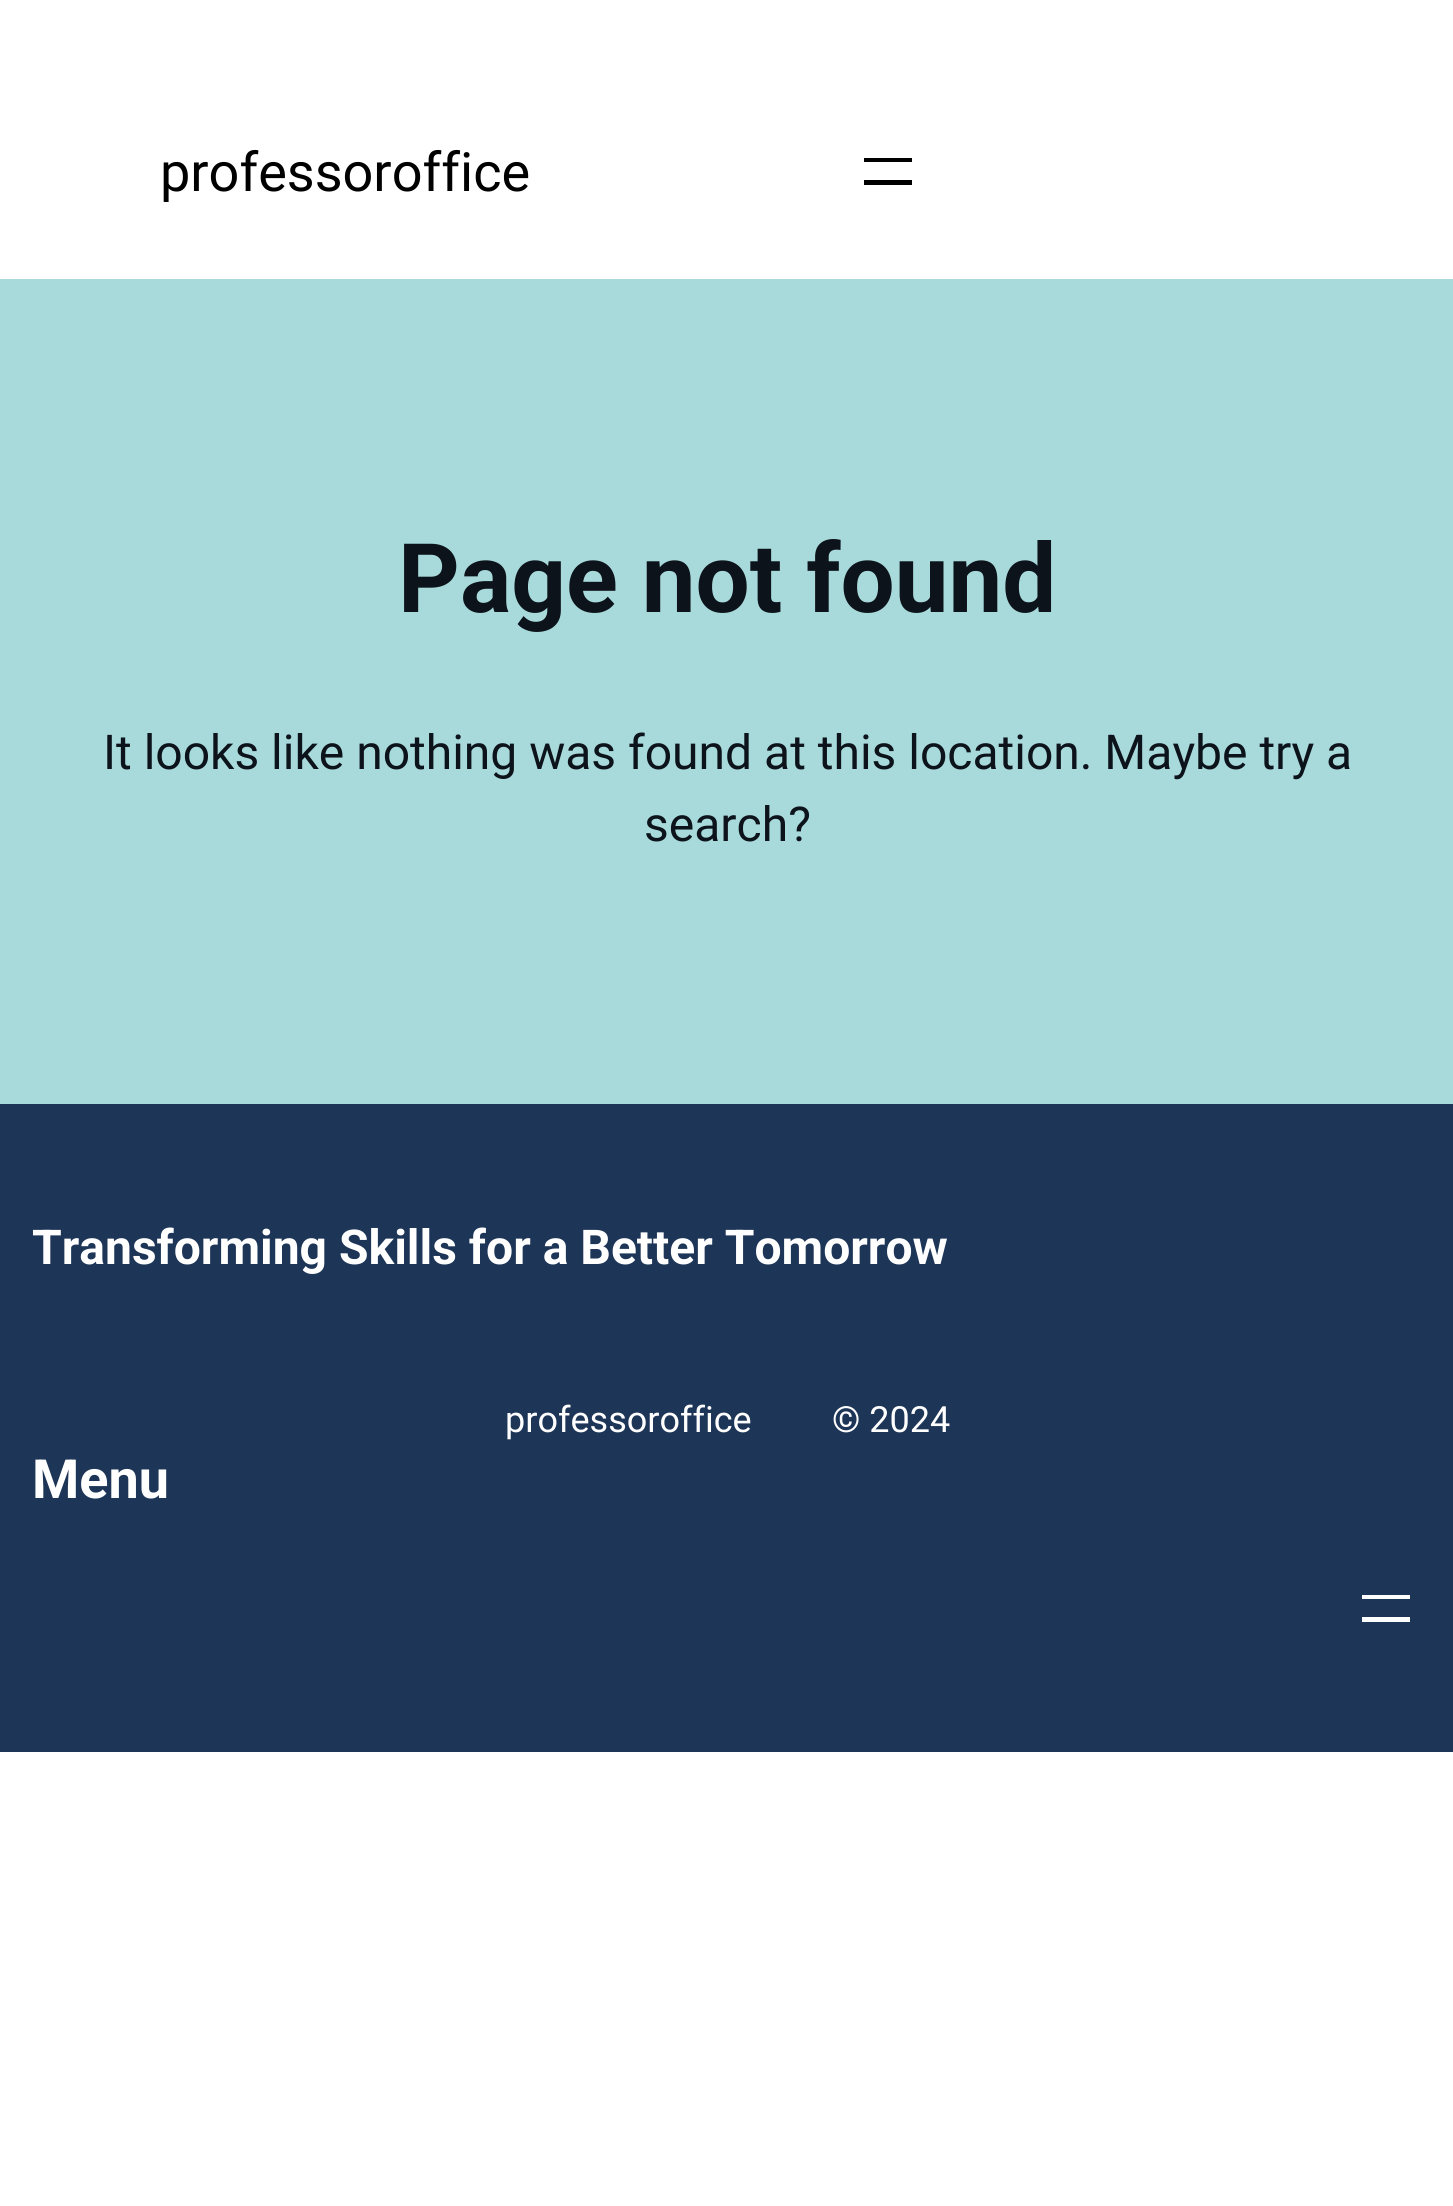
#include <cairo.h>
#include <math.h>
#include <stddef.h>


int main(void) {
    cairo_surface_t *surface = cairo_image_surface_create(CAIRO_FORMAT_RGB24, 1453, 2206);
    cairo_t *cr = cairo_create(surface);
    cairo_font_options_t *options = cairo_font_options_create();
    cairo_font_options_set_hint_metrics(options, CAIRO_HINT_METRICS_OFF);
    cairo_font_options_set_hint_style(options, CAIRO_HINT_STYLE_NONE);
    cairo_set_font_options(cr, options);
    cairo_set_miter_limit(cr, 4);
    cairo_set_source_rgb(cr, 1, 1, 1);
    cairo_paint(cr);
    cairo_select_font_face(cr, "Roboto", CAIRO_FONT_SLANT_NORMAL, CAIRO_FONT_WEIGHT_NORMAL);
    cairo_set_font_size(cr, 54);
    cairo_set_source_rgb(cr, 0, 0, 0);
    cairo_move_to(cr, 160, 191);
    cairo_show_text(cr, "professoroffice");
    cairo_rectangle(cr, 864, 158, 48, 4);
    cairo_fill(cr);
    cairo_rectangle(cr, 864, 180, 48, 5);
    cairo_fill(cr);
    cairo_set_source_rgb(cr, 0.659, 0.855, 0.863);
    cairo_rectangle(cr, 0, 279, 1453, 825);
    cairo_fill(cr);
    cairo_select_font_face(cr, "Roboto", CAIRO_FONT_SLANT_NORMAL, CAIRO_FONT_WEIGHT_BOLD);
    cairo_set_font_size(cr, 96);
    cairo_set_source_rgb(cr, 0.051, 0.078, 0.102);
    cairo_move_to(cr, 398, 612);
    cairo_show_text(cr, "Page not found");
    cairo_select_font_face(cr, "Roboto", CAIRO_FONT_SLANT_NORMAL, CAIRO_FONT_WEIGHT_NORMAL);
    cairo_set_font_size(cr, 48);
    cairo_move_to(cr, 103, 769);
    cairo_show_text(cr, "It looks like nothing was found at this location. Maybe try a");
    cairo_move_to(cr, 644, 841);
    cairo_show_text(cr, "search?");
    cairo_set_source_rgb(cr, 0.114, 0.208, 0.341);
    cairo_rectangle(cr, 0, 1104, 1453, 648);
    cairo_fill(cr);
    cairo_select_font_face(cr, "Roboto", CAIRO_FONT_SLANT_NORMAL, CAIRO_FONT_WEIGHT_BOLD);
    cairo_set_source_rgb(cr, 1, 1, 1);
    cairo_move_to(cr, 32, 1264);
    cairo_show_text(cr, "Transforming Skills for a Better Tomorrow");
    cairo_select_font_face(cr, "Roboto", CAIRO_FONT_SLANT_NORMAL, CAIRO_FONT_WEIGHT_NORMAL);
    cairo_set_font_size(cr, 36);
    cairo_move_to(cr, 505, 1432);
    cairo_show_text(cr, "professoroffice");
    cairo_move_to(cr, 832, 1432);
    cairo_show_text(cr, "© 2024");
    cairo_select_font_face(cr, "Roboto", CAIRO_FONT_SLANT_NORMAL, CAIRO_FONT_WEIGHT_BOLD);
    cairo_set_font_size(cr, 54);
    cairo_move_to(cr, 32, 1498);
    cairo_show_text(cr, "Menu");
    cairo_rectangle(cr, 1362, 1595, 48, 4);
    cairo_fill(cr);
    cairo_rectangle(cr, 1362, 1617, 48, 5);
    cairo_fill(cr);
    cairo_surface_write_to_png(surface, "page.png");
    cairo_font_options_destroy(options);
    cairo_destroy(cr);
    cairo_surface_destroy(surface);
    return 0;
}
